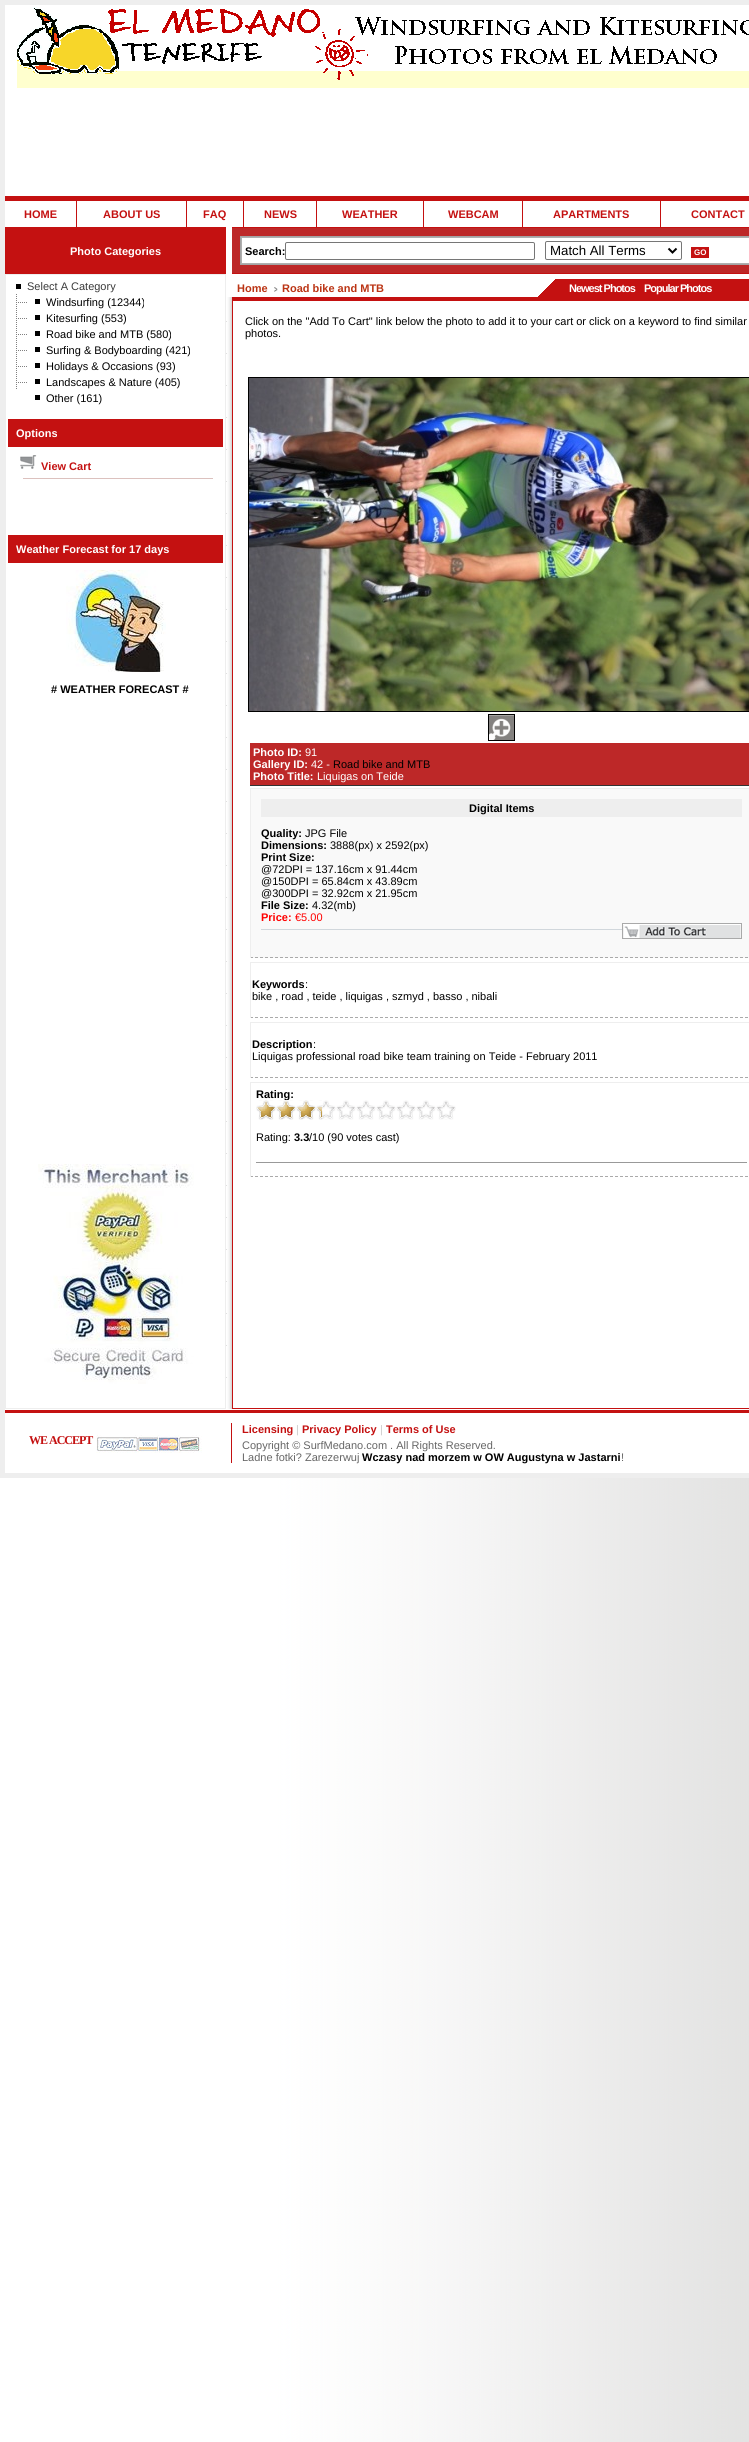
#include <cairo.h>
#include <math.h>
#include <stddef.h>


static void spaced_text(cairo_t *cr, double x, double y, const char *s, double letter, double word) {
    cairo_move_to(cr, x, y);
    while (*s) {
        char ch[5] = {0};
        int n = 0;
        do ch[n++] = *s++; while ((*s & 0xC0) == 0x80);
        cairo_show_text(cr, ch);
        cairo_rel_move_to(cr, letter + word * (*ch == ' '), 0);
    }
}

static void round_rect(cairo_t *cr, double x, double y, double w, double h, double r) {
    cairo_new_sub_path(cr);
    cairo_arc(cr, x + w - r, y + h - r, r, 0, M_PI / 2);
    cairo_arc(cr, x + r, y + h - r, r, M_PI / 2, M_PI);
    cairo_arc(cr, x + r, y + r, r, M_PI, 1.5 * M_PI);
    cairo_arc(cr, x + w - r, y + r, r, 1.5 * M_PI, 2 * M_PI);
    cairo_close_path(cr);
}

static void picture(cairo_t *cr, const char *path, double x, double y, double w, double h) {
    cairo_surface_t *image = cairo_image_surface_create_from_png(path);
    cairo_save(cr);
    cairo_set_source_surface(cr, image, x, y);
    cairo_rectangle(cr, x, y, w, h);
    cairo_fill(cr);
    cairo_restore(cr);
    cairo_surface_destroy(image);
}

int main(void) {
    cairo_surface_t *surface = cairo_image_surface_create(CAIRO_FORMAT_RGB24, 749, 2442);
    cairo_t *cr = cairo_create(surface);
    cairo_font_options_t *options = cairo_font_options_create();
    cairo_font_options_set_hint_metrics(options, CAIRO_HINT_METRICS_OFF);
    cairo_font_options_set_hint_style(options, CAIRO_HINT_STYLE_NONE);
    cairo_set_font_options(cr, options);
    cairo_set_miter_limit(cr, 4);
    cairo_set_source_rgb(cr, 1, 1, 1);
    cairo_paint(cr);
    picture(cr, "img1.png", 0, 1478, 749, 964);
    cairo_rectangle(cr, 2.5, 2.5, 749, 1473);
    cairo_set_source_rgb(cr, 0.933, 0.933, 0.933);
    cairo_set_line_width(cr, 5);
    cairo_stroke(cr);
    picture(cr, "img2.png", 17, 7, 732, 81);
    cairo_set_source_rgb(cr, 0.769, 0.067, 0.067);
    cairo_rectangle(cr, 5, 196, 744, 5);
    cairo_fill(cr);
    cairo_select_font_face(cr, "Liberation Sans", CAIRO_FONT_SLANT_NORMAL, CAIRO_FONT_WEIGHT_BOLD);
    cairo_set_font_size(cr, 11);
    cairo_move_to(cr, 24, 218);
    cairo_show_text(cr, "HOME");
    cairo_rectangle(cr, 76, 196, 1, 31);
    cairo_fill(cr);
    cairo_move_to(cr, 103, 218);
    cairo_show_text(cr, "ABOUT US");
    cairo_rectangle(cr, 186, 196, 1, 31);
    cairo_fill(cr);
    cairo_move_to(cr, 203, 218);
    cairo_show_text(cr, "FAQ");
    cairo_rectangle(cr, 243, 196, 1, 31);
    cairo_fill(cr);
    cairo_move_to(cr, 264, 218);
    cairo_show_text(cr, "NEWS");
    cairo_rectangle(cr, 316, 196, 1, 31);
    cairo_fill(cr);
    cairo_move_to(cr, 342, 218);
    cairo_show_text(cr, "WEATHER");
    cairo_rectangle(cr, 423, 196, 1, 31);
    cairo_fill(cr);
    cairo_move_to(cr, 448, 218);
    cairo_show_text(cr, "WEBCAM");
    cairo_rectangle(cr, 522, 196, 1, 31);
    cairo_fill(cr);
    cairo_move_to(cr, 553, 218);
    cairo_show_text(cr, "APARTMENTS");
    cairo_rectangle(cr, 660, 196, 1, 31);
    cairo_fill(cr);
    cairo_move_to(cr, 691, 218);
    cairo_show_text(cr, "CONTACT");
    cairo_rectangle(cr, 5, 227, 221, 47);
    cairo_fill(cr);
    cairo_set_source_rgb(cr, 1, 1, 1);
    cairo_move_to(cr, 70, 255);
    cairo_show_text(cr, "Photo Categories");
    cairo_set_source_rgb(cr, 0.741, 0.157, 0.157);
    cairo_rectangle(cr, 232, 228, 517, 45);
    cairo_fill(cr);
    cairo_set_source_rgb(cr, 0.769, 0.067, 0.067);
    cairo_rectangle(cr, 232, 227, 517, 1);
    cairo_fill(cr);
    cairo_rectangle(cr, 232, 273, 517, 1);
    cairo_fill(cr);
    cairo_set_source_rgb(cr, 0.643, 0.643, 0.643);
    cairo_rectangle(cr, 240, 236, 509, 29);
    cairo_fill(cr);
    cairo_set_source_rgb(cr, 1, 1, 1);
    cairo_rectangle(cr, 241.5, 237.5, 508, 26);
    cairo_fill_preserve(cr);
    cairo_set_source_rgb(cr, 0.686, 0.686, 0.686);
    cairo_set_line_width(cr, 1);
    cairo_stroke(cr);
    cairo_set_source_rgb(cr, 0, 0, 0);
    cairo_move_to(cr, 245, 255);
    cairo_show_text(cr, "Search:");
    round_rect(cr, 285.5, 242.5, 249, 17, 1.5);
    cairo_set_source_rgb(cr, 0.463, 0.463, 0.463);
    cairo_stroke(cr);
    round_rect(cr, 545.5, 241.5, 136, 18, 1.5);
    cairo_stroke(cr);
    cairo_new_path(cr);
    cairo_move_to(cr, 668.5, 248.5);
    cairo_line_to(cr, 672.5, 252.5);
    cairo_line_to(cr, 676.5, 248.5);
    cairo_set_source_rgb(cr, 0, 0, 0);
    cairo_set_line_width(cr, 2);
    cairo_stroke(cr);
    cairo_select_font_face(cr, "Liberation Sans", CAIRO_FONT_SLANT_NORMAL, CAIRO_FONT_WEIGHT_NORMAL);
    cairo_set_font_size(cr, 13.25);
    cairo_move_to(cr, 550, 255);
    cairo_show_text(cr, "Match All Terms");
    cairo_set_source_rgb(cr, 0.769, 0.067, 0.067);
    cairo_rectangle(cr, 691, 247, 18, 11);
    cairo_fill(cr);
    cairo_select_font_face(cr, "Liberation Sans", CAIRO_FONT_SLANT_NORMAL, CAIRO_FONT_WEIGHT_BOLD);
    cairo_set_font_size(cr, 8);
    cairo_set_source_rgb(cr, 1, 1, 1);
    cairo_move_to(cr, 694, 255);
    cairo_show_text(cr, "GO");
    cairo_rectangle(cr, 5.5, 274.5, 220, 1134);
    cairo_set_source_rgb(cr, 0.933, 0.933, 0.933);
    cairo_set_line_width(cr, 1);
    cairo_stroke(cr);
    cairo_set_source_rgb(cr, 0, 0, 0);
    cairo_rectangle(cr, 16, 284, 5, 5);
    cairo_fill(cr);
    cairo_select_font_face(cr, "Liberation Sans", CAIRO_FONT_SLANT_NORMAL, CAIRO_FONT_WEIGHT_NORMAL);
    cairo_set_font_size(cr, 11);
    cairo_set_source_rgb(cr, 0.227, 0.227, 0.227);
    cairo_move_to(cr, 27, 290);
    cairo_show_text(cr, "Select A Category");
    picture(cr, "img3.png", 16, 294, 11, 15);
    cairo_set_source_rgb(cr, 0, 0, 0);
    cairo_rectangle(cr, 35, 299, 5, 5);
    cairo_fill(cr);
    cairo_move_to(cr, 46, 306);
    cairo_show_text(cr, "Windsurfing (12344)");
    picture(cr, "img3.png", 16, 310, 11, 15);
    cairo_rectangle(cr, 35, 315, 5, 5);
    cairo_fill(cr);
    cairo_move_to(cr, 46, 322);
    cairo_show_text(cr, "Kitesurfing (553)");
    picture(cr, "img3.png", 16, 326, 11, 15);
    cairo_rectangle(cr, 35, 331, 5, 5);
    cairo_fill(cr);
    cairo_move_to(cr, 46, 338);
    cairo_show_text(cr, "Road bike and MTB (580)");
    picture(cr, "img3.png", 16, 342, 11, 15);
    cairo_rectangle(cr, 35, 347, 5, 5);
    cairo_fill(cr);
    cairo_move_to(cr, 46, 354);
    cairo_show_text(cr, "Surfing & Bodyboarding (421)");
    picture(cr, "img3.png", 16, 358, 11, 15);
    cairo_rectangle(cr, 35, 363, 5, 5);
    cairo_fill(cr);
    cairo_move_to(cr, 46, 370);
    cairo_show_text(cr, "Holidays & Occasions (93)");
    picture(cr, "img3.png", 16, 374, 11, 15);
    cairo_rectangle(cr, 35, 379, 5, 5);
    cairo_fill(cr);
    cairo_move_to(cr, 46, 386);
    cairo_show_text(cr, "Landscapes & Nature (405)");
    cairo_rectangle(cr, 35, 395, 5, 5);
    cairo_fill(cr);
    cairo_move_to(cr, 46, 402);
    cairo_show_text(cr, "Other (161)");
    cairo_set_source_rgb(cr, 0.769, 0.067, 0.067);
    cairo_rectangle(cr, 8, 419, 215, 28);
    cairo_fill(cr);
    cairo_select_font_face(cr, "Liberation Sans", CAIRO_FONT_SLANT_NORMAL, CAIRO_FONT_WEIGHT_BOLD);
    cairo_set_source_rgb(cr, 1, 1, 1);
    cairo_move_to(cr, 16, 437);
    cairo_show_text(cr, "Options");
    picture(cr, "img4.png", 20, 455, 17, 14);
    cairo_set_source_rgb(cr, 0.769, 0.067, 0.067);
    cairo_move_to(cr, 41, 470);
    cairo_show_text(cr, "View Cart");
    cairo_set_source_rgb(cr, 0.863, 0.757, 0.745);
    cairo_rectangle(cr, 23, 478, 190, 1);
    cairo_fill(cr);
    cairo_set_source_rgb(cr, 0.769, 0.067, 0.067);
    cairo_rectangle(cr, 8, 535, 215, 28);
    cairo_fill(cr);
    cairo_set_source_rgb(cr, 1, 1, 1);
    cairo_move_to(cr, 16, 553);
    cairo_show_text(cr, "Weather Forecast for 17 days");
    picture(cr, "img5.png", 66, 570, 100, 102);
    cairo_set_source_rgb(cr, 0, 0, 0);
    cairo_move_to(cr, 51, 693);
    cairo_show_text(cr, "# WEATHER FORECAST #");
    picture(cr, "img6.png", 38, 1164, 156, 220);
    picture(cr, "img7.png", 226, 297, 6, 1112);
    cairo_set_source_rgb(cr, 0.733, 0.204, 0.082);
    cairo_move_to(cr, 237, 292);
    cairo_show_text(cr, "Home");
    picture(cr, "img8.png", 274, 287, 4, 5);
    cairo_move_to(cr, 282, 292);
    cairo_show_text(cr, "Road bike and MTB");
    cairo_set_source_rgb(cr, 0.769, 0.067, 0.067);
    cairo_rectangle(cr, 538, 279, 211, 18);
    cairo_fill(cr);
    picture(cr, "img9.png", 537, 279, 18, 18);
    cairo_set_source_rgb(cr, 1, 1, 1);
    spaced_text(cr, 569, 292, "Newest Photos", -1, 0);
    spaced_text(cr, 644, 292, "Popular Photos", -1, 0);
    cairo_set_source_rgb(cr, 0.769, 0.067, 0.067);
    cairo_rectangle(cr, 232, 297, 517, 4);
    cairo_fill(cr);
    cairo_rectangle(cr, 232, 1408, 517, 1);
    cairo_fill(cr);
    cairo_rectangle(cr, 232, 301, 1, 1108);
    cairo_fill(cr);
    cairo_select_font_face(cr, "Liberation Sans", CAIRO_FONT_SLANT_NORMAL, CAIRO_FONT_WEIGHT_NORMAL);
    cairo_set_source_rgb(cr, 0, 0, 0);
    cairo_move_to(cr, 245, 325);
    cairo_show_text(cr, "Click on the \"Add To Cart\" link below the photo to add it to your cart or click on a keyword to find similar");
    cairo_move_to(cr, 245, 337);
    cairo_show_text(cr, "photos.");
    cairo_rectangle(cr, 248.5, 377.5, 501, 334);
    cairo_stroke(cr);
    picture(cr, "img10.png", 249, 378, 500, 333);
    cairo_rectangle(cr, 488.5, 714.5, 26, 26);
    cairo_stroke(cr);
    picture(cr, "img11.png", 489, 715, 25, 25);
    cairo_set_source_rgb(cr, 0.741, 0.157, 0.157);
    cairo_rectangle(cr, 250, 743, 499, 42);
    cairo_fill(cr);
    cairo_set_source_rgb(cr, 0.2, 0.2, 0.2);
    cairo_rectangle(cr, 250, 785, 499, 1);
    cairo_fill(cr);
    cairo_select_font_face(cr, "Liberation Sans", CAIRO_FONT_SLANT_NORMAL, CAIRO_FONT_WEIGHT_BOLD);
    cairo_set_source_rgb(cr, 1, 1, 1);
    cairo_move_to(cr, 253, 756);
    cairo_show_text(cr, "Photo ID:");
    cairo_select_font_face(cr, "Liberation Sans", CAIRO_FONT_SLANT_NORMAL, CAIRO_FONT_WEIGHT_NORMAL);
    cairo_move_to(cr, 305, 756);
    cairo_show_text(cr, "91");
    cairo_select_font_face(cr, "Liberation Sans", CAIRO_FONT_SLANT_NORMAL, CAIRO_FONT_WEIGHT_BOLD);
    cairo_move_to(cr, 253, 768);
    cairo_show_text(cr, "Gallery ID:");
    cairo_select_font_face(cr, "Liberation Sans", CAIRO_FONT_SLANT_NORMAL, CAIRO_FONT_WEIGHT_NORMAL);
    cairo_move_to(cr, 311, 768);
    cairo_show_text(cr, "42 -");
    cairo_set_source_rgb(cr, 0, 0, 0);
    cairo_move_to(cr, 333, 768);
    cairo_show_text(cr, "Road bike and MTB");
    cairo_select_font_face(cr, "Liberation Sans", CAIRO_FONT_SLANT_NORMAL, CAIRO_FONT_WEIGHT_BOLD);
    cairo_set_source_rgb(cr, 1, 1, 1);
    cairo_move_to(cr, 253, 780);
    cairo_show_text(cr, "Photo Title:");
    cairo_select_font_face(cr, "Liberation Sans", CAIRO_FONT_SLANT_NORMAL, CAIRO_FONT_WEIGHT_NORMAL);
    cairo_move_to(cr, 317, 780);
    cairo_show_text(cr, "Liquigas on Teide");
    cairo_set_source_rgb(cr, 0.976, 0.976, 0.976);
    cairo_rectangle(cr, 251, 789, 498, 169);
    cairo_fill(cr);
    cairo_set_source_rgb(cr, 0.933, 0.933, 0.933);
    cairo_rectangle(cr, 250, 788, 499, 1);
    cairo_fill(cr);
    cairo_new_path(cr);
    cairo_move_to(cr, 250, 957.5);
    cairo_line_to(cr, 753, 957.5);
    cairo_set_source_rgb(cr, 0.667, 0.667, 0.667);
    cairo_set_dash(cr, (double[]){3, 2}, 2, 0);
    cairo_stroke(cr);
    cairo_set_source_rgb(cr, 0.933, 0.933, 0.933);
    cairo_rectangle(cr, 250, 788, 1, 170);
    cairo_fill(cr);
    cairo_rectangle(cr, 261, 799, 481, 18);
    cairo_fill(cr);
    cairo_select_font_face(cr, "Liberation Sans", CAIRO_FONT_SLANT_NORMAL, CAIRO_FONT_WEIGHT_BOLD);
    cairo_set_source_rgb(cr, 0, 0, 0);
    cairo_move_to(cr, 469, 812);
    cairo_show_text(cr, "Digital Items");
    cairo_move_to(cr, 261, 837);
    cairo_show_text(cr, "Quality:");
    cairo_select_font_face(cr, "Liberation Sans", CAIRO_FONT_SLANT_NORMAL, CAIRO_FONT_WEIGHT_NORMAL);
    cairo_move_to(cr, 305, 837);
    cairo_show_text(cr, "JPG File");
    cairo_select_font_face(cr, "Liberation Sans", CAIRO_FONT_SLANT_NORMAL, CAIRO_FONT_WEIGHT_BOLD);
    cairo_move_to(cr, 261, 849);
    cairo_show_text(cr, "Dimensions:");
    cairo_select_font_face(cr, "Liberation Sans", CAIRO_FONT_SLANT_NORMAL, CAIRO_FONT_WEIGHT_NORMAL);
    cairo_move_to(cr, 330, 849);
    cairo_show_text(cr, "3888(px) x 2592(px)");
    cairo_select_font_face(cr, "Liberation Sans", CAIRO_FONT_SLANT_NORMAL, CAIRO_FONT_WEIGHT_BOLD);
    cairo_move_to(cr, 261, 861);
    cairo_show_text(cr, "Print Size:");
    cairo_select_font_face(cr, "Liberation Sans", CAIRO_FONT_SLANT_NORMAL, CAIRO_FONT_WEIGHT_NORMAL);
    cairo_move_to(cr, 261, 873);
    cairo_show_text(cr, "@72DPI = 137.16cm x 91.44cm");
    cairo_move_to(cr, 261, 885);
    cairo_show_text(cr, "@150DPI = 65.84cm x 43.89cm");
    cairo_move_to(cr, 261, 897);
    cairo_show_text(cr, "@300DPI = 32.92cm x 21.95cm");
    cairo_select_font_face(cr, "Liberation Sans", CAIRO_FONT_SLANT_NORMAL, CAIRO_FONT_WEIGHT_BOLD);
    cairo_move_to(cr, 261, 909);
    cairo_show_text(cr, "File Size:");
    cairo_select_font_face(cr, "Liberation Sans", CAIRO_FONT_SLANT_NORMAL, CAIRO_FONT_WEIGHT_NORMAL);
    cairo_move_to(cr, 312, 909);
    cairo_show_text(cr, "4.32(mb)");
    cairo_select_font_face(cr, "Liberation Sans", CAIRO_FONT_SLANT_NORMAL, CAIRO_FONT_WEIGHT_BOLD);
    cairo_set_source_rgb(cr, 1, 0, 0);
    cairo_move_to(cr, 261, 921);
    cairo_show_text(cr, "Price:");
    cairo_select_font_face(cr, "Liberation Sans", CAIRO_FONT_SLANT_NORMAL, CAIRO_FONT_WEIGHT_NORMAL);
    cairo_move_to(cr, 295, 921);
    cairo_show_text(cr, "€5.00");
    cairo_set_source_rgb(cr, 0.82, 0.843, 0.863);
    cairo_rectangle(cr, 261, 929, 361, 1);
    cairo_fill(cr);
    cairo_rectangle(cr, 622.5, 923.5, 119, 15);
    cairo_set_source_rgb(cr, 0.663, 0.663, 0.663);
    cairo_set_dash(cr, NULL, 0, 0);
    cairo_stroke(cr);
    picture(cr, "img12.png", 623, 924, 118, 14);
    cairo_set_source_rgb(cr, 0.933, 0.933, 0.933);
    cairo_rectangle(cr, 250, 962, 499, 1);
    cairo_fill(cr);
    cairo_new_path(cr);
    cairo_move_to(cr, 250, 1017.5);
    cairo_line_to(cr, 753, 1017.5);
    cairo_set_source_rgb(cr, 0.667, 0.667, 0.667);
    cairo_set_dash(cr, (double[]){3, 2}, 2, 0);
    cairo_stroke(cr);
    cairo_set_source_rgb(cr, 0.933, 0.933, 0.933);
    cairo_rectangle(cr, 250, 962, 1, 56);
    cairo_fill(cr);
    cairo_select_font_face(cr, "Liberation Sans", CAIRO_FONT_SLANT_NORMAL, CAIRO_FONT_WEIGHT_BOLD);
    cairo_set_source_rgb(cr, 0, 0, 0);
    cairo_move_to(cr, 252, 988);
    cairo_show_text(cr, "Keywords");
    cairo_select_font_face(cr, "Liberation Sans", CAIRO_FONT_SLANT_NORMAL, CAIRO_FONT_WEIGHT_NORMAL);
    cairo_move_to(cr, 305, 988);
    cairo_show_text(cr, ":");
    cairo_move_to(cr, 252, 1000);
    cairo_show_text(cr, "bike , road , teide , liquigas , szmyd , basso , nibali");
    cairo_set_source_rgb(cr, 0.933, 0.933, 0.933);
    cairo_rectangle(cr, 250, 1022, 499, 1);
    cairo_fill(cr);
    cairo_new_path(cr);
    cairo_move_to(cr, 250, 1077.5);
    cairo_line_to(cr, 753, 1077.5);
    cairo_set_source_rgb(cr, 0.667, 0.667, 0.667);
    cairo_stroke(cr);
    cairo_set_source_rgb(cr, 0.933, 0.933, 0.933);
    cairo_rectangle(cr, 250, 1022, 1, 56);
    cairo_fill(cr);
    cairo_select_font_face(cr, "Liberation Sans", CAIRO_FONT_SLANT_NORMAL, CAIRO_FONT_WEIGHT_BOLD);
    cairo_set_source_rgb(cr, 0, 0, 0);
    cairo_move_to(cr, 252, 1048);
    cairo_show_text(cr, "Description");
    cairo_select_font_face(cr, "Liberation Sans", CAIRO_FONT_SLANT_NORMAL, CAIRO_FONT_WEIGHT_NORMAL);
    cairo_move_to(cr, 313, 1048);
    cairo_show_text(cr, ":");
    cairo_move_to(cr, 252, 1060);
    cairo_show_text(cr, "Liquigas professional road bike team training on Teide - February 2011");
    cairo_set_source_rgb(cr, 0.933, 0.933, 0.933);
    cairo_rectangle(cr, 250, 1082, 499, 1);
    cairo_fill(cr);
    cairo_new_path(cr);
    cairo_move_to(cr, 250, 1176.5);
    cairo_line_to(cr, 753, 1176.5);
    cairo_set_source_rgb(cr, 0.667, 0.667, 0.667);
    cairo_stroke(cr);
    cairo_set_source_rgb(cr, 0.933, 0.933, 0.933);
    cairo_rectangle(cr, 250, 1082, 1, 95);
    cairo_fill(cr);
    cairo_select_font_face(cr, "Liberation Sans", CAIRO_FONT_SLANT_NORMAL, CAIRO_FONT_WEIGHT_BOLD);
    cairo_set_source_rgb(cr, 0, 0, 0);
    cairo_move_to(cr, 256, 1098);
    cairo_show_text(cr, "Rating:");
    cairo_set_source_rgb(cr, 0.6, 0.6, 0.6);
    cairo_rectangle(cr, 256, 1162, 491, 1);
    cairo_fill(cr);
    picture(cr, "img13.png", 322, 1100, 134, 20);
    picture(cr, "img14.png", 256, 1100, 66, 20);
    cairo_select_font_face(cr, "Liberation Sans", CAIRO_FONT_SLANT_NORMAL, CAIRO_FONT_WEIGHT_NORMAL);
    cairo_set_source_rgb(cr, 0, 0, 0);
    cairo_move_to(cr, 256, 1141);
    cairo_show_text(cr, "Rating:");
    cairo_select_font_face(cr, "Liberation Sans", CAIRO_FONT_SLANT_NORMAL, CAIRO_FONT_WEIGHT_BOLD);
    cairo_move_to(cr, 294, 1141);
    cairo_show_text(cr, "3.3");
    cairo_select_font_face(cr, "Liberation Sans", CAIRO_FONT_SLANT_NORMAL, CAIRO_FONT_WEIGHT_NORMAL);
    cairo_move_to(cr, 309, 1141);
    cairo_show_text(cr, "/10 (90 votes cast)");
    cairo_set_source_rgb(cr, 0.769, 0.067, 0.067);
    cairo_rectangle(cr, 5, 1410, 744, 3);
    cairo_fill(cr);
    cairo_select_font_face(cr, "Liberation Serif", CAIRO_FONT_SLANT_NORMAL, CAIRO_FONT_WEIGHT_BOLD);
    cairo_set_font_size(cr, 12);
    spaced_text(cr, 29, 1444, "WE ACCEPT", -1, 0);
    picture(cr, "img15.png", 96, 1435, 106, 18);
    cairo_rectangle(cr, 231, 1423, 1, 40);
    cairo_fill(cr);
    cairo_select_font_face(cr, "Liberation Sans", CAIRO_FONT_SLANT_NORMAL, CAIRO_FONT_WEIGHT_BOLD);
    cairo_set_font_size(cr, 11);
    cairo_move_to(cr, 242, 1433);
    cairo_show_text(cr, "Licensing");
    cairo_select_font_face(cr, "Liberation Sans", CAIRO_FONT_SLANT_NORMAL, CAIRO_FONT_WEIGHT_NORMAL);
    cairo_set_source_rgb(cr, 0.8, 0.8, 0.8);
    cairo_move_to(cr, 296, 1433);
    cairo_show_text(cr, "|");
    cairo_select_font_face(cr, "Liberation Sans", CAIRO_FONT_SLANT_NORMAL, CAIRO_FONT_WEIGHT_BOLD);
    cairo_set_source_rgb(cr, 0.769, 0.067, 0.067);
    cairo_move_to(cr, 302, 1433);
    cairo_show_text(cr, "Privacy Policy");
    cairo_select_font_face(cr, "Liberation Sans", CAIRO_FONT_SLANT_NORMAL, CAIRO_FONT_WEIGHT_NORMAL);
    cairo_set_source_rgb(cr, 0.8, 0.8, 0.8);
    cairo_move_to(cr, 380, 1433);
    cairo_show_text(cr, "|");
    cairo_select_font_face(cr, "Liberation Sans", CAIRO_FONT_SLANT_NORMAL, CAIRO_FONT_WEIGHT_BOLD);
    cairo_set_source_rgb(cr, 0.769, 0.067, 0.067);
    cairo_move_to(cr, 386, 1433);
    cairo_show_text(cr, "Terms of Use");
    cairo_select_font_face(cr, "Liberation Sans", CAIRO_FONT_SLANT_NORMAL, CAIRO_FONT_WEIGHT_NORMAL);
    cairo_set_source_rgb(cr, 0.4, 0.4, 0.4);
    cairo_move_to(cr, 242, 1449);
    cairo_show_text(cr, "Copyright © SurfMedano.com . All Rights Reserved.");
    cairo_move_to(cr, 242, 1461);
    cairo_show_text(cr, "Ladne fotki? Zarezerwuj");
    cairo_select_font_face(cr, "Liberation Sans", CAIRO_FONT_SLANT_NORMAL, CAIRO_FONT_WEIGHT_BOLD);
    cairo_set_source_rgb(cr, 0, 0, 0);
    cairo_move_to(cr, 362, 1461);
    cairo_show_text(cr, "Wczasy nad morzem w OW Augustyna w Jastarni");
    cairo_select_font_face(cr, "Liberation Sans", CAIRO_FONT_SLANT_NORMAL, CAIRO_FONT_WEIGHT_NORMAL);
    cairo_set_source_rgb(cr, 0.4, 0.4, 0.4);
    cairo_move_to(cr, 621, 1461);
    cairo_show_text(cr, "!");
    cairo_surface_write_to_png(surface, "page.png");
    cairo_font_options_destroy(options);
    cairo_destroy(cr);
    cairo_surface_destroy(surface);
    return 0;
}
